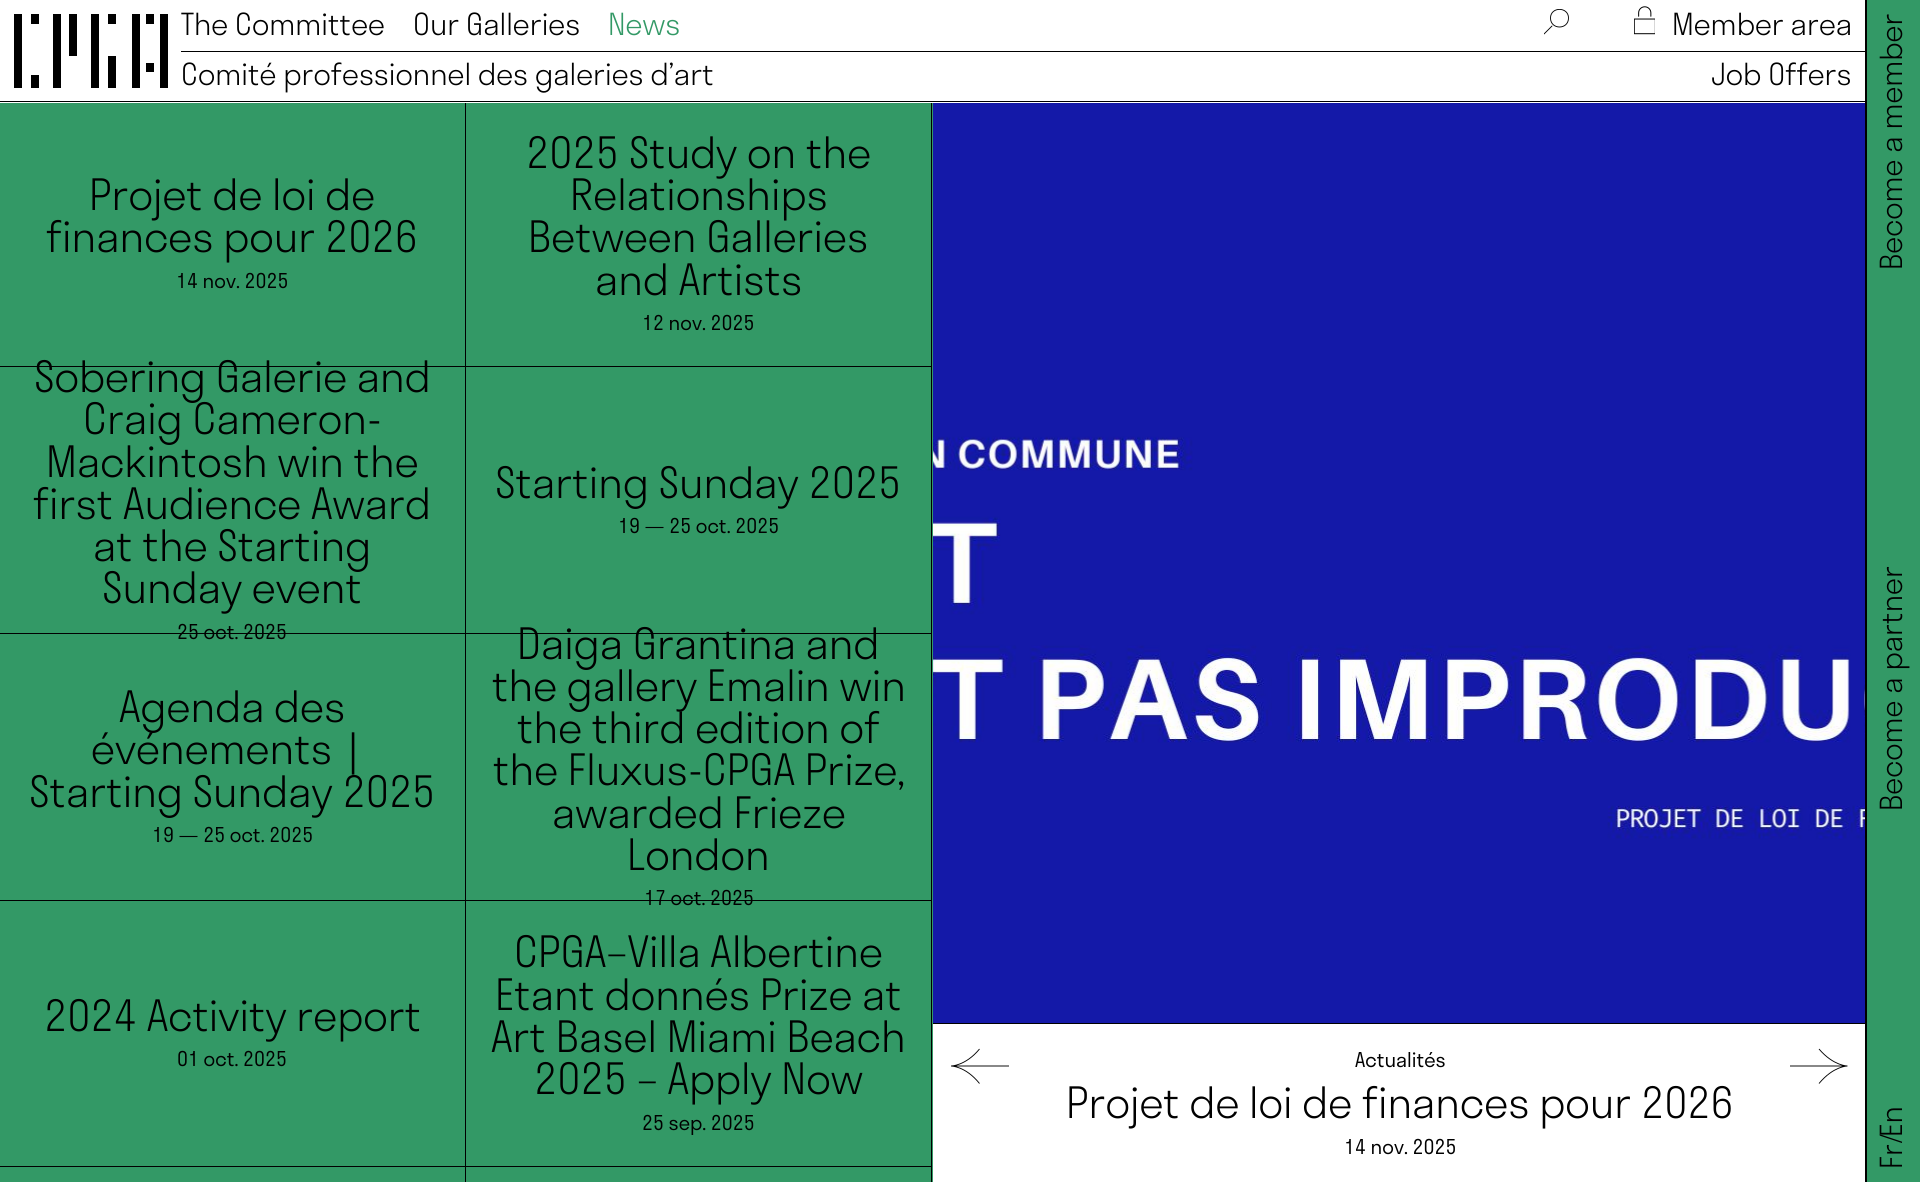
#include <cairo.h>
#include <math.h>
#include <stddef.h>


static void picture(cairo_t *cr, const char *path, double x, double y, double w, double h) {
    cairo_surface_t *image = cairo_image_surface_create_from_png(path);
    cairo_save(cr);
    cairo_set_source_surface(cr, image, x, y);
    cairo_rectangle(cr, x, y, w, h);
    cairo_fill(cr);
    cairo_restore(cr);
    cairo_surface_destroy(image);
}

int main(void) {
    cairo_surface_t *surface = cairo_image_surface_create(CAIRO_FORMAT_RGB24, 1920, 1182);
    cairo_t *cr = cairo_create(surface);
    cairo_font_options_t *options = cairo_font_options_create();
    cairo_font_options_set_hint_metrics(options, CAIRO_HINT_METRICS_OFF);
    cairo_font_options_set_hint_style(options, CAIRO_HINT_STYLE_NONE);
    cairo_set_font_options(cr, options);
    cairo_set_miter_limit(cr, 4);
    cairo_set_source_rgb(cr, 0.2, 0.6, 0.4);
    cairo_paint(cr);
    cairo_set_source_rgb(cr, 0, 0, 0);
    cairo_rectangle(cr, 931, 101, 1, 1081);
    cairo_fill(cr);
    cairo_rectangle(cr, 465, 101, 1, 1081);
    cairo_fill(cr);
    cairo_set_source_rgb(cr, 1, 1, 1);
    cairo_rectangle(cr, 0, 0, 1865, 103);
    cairo_fill(cr);
    cairo_set_source_rgb(cr, 0, 0, 0);
    cairo_rectangle(cr, 0, 101, 1865, 1);
    cairo_fill(cr);
    cairo_rectangle(cr, 14, 14, 8, 74);
    cairo_fill(cr);
    cairo_rectangle(cr, 31, 14, 8, 10);
    cairo_fill(cr);
    cairo_rectangle(cr, 53, 14, 8, 74);
    cairo_fill(cr);
    cairo_rectangle(cr, 69, 14, 8, 42);
    cairo_fill(cr);
    cairo_rectangle(cr, 91, 14, 8, 74);
    cairo_fill(cr);
    cairo_rectangle(cr, 108, 14, 8, 10);
    cairo_fill(cr);
    cairo_rectangle(cr, 132, 14, 8, 74);
    cairo_fill(cr);
    cairo_rectangle(cr, 146, 14, 8, 10);
    cairo_fill(cr);
    cairo_rectangle(cr, 160, 14, 8, 74);
    cairo_fill(cr);
    cairo_rectangle(cr, 108, 56, 8, 32);
    cairo_fill(cr);
    cairo_rectangle(cr, 146, 63, 8, 9);
    cairo_fill(cr);
    cairo_rectangle(cr, 31, 75, 8, 13);
    cairo_fill(cr);
    cairo_select_font_face(cr, "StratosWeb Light", CAIRO_FONT_SLANT_NORMAL, CAIRO_FONT_WEIGHT_NORMAL);
    cairo_set_font_size(cr, 29.75);
    cairo_move_to(cr, 181, 35);
    cairo_show_text(cr, "The Committee");
    cairo_move_to(cr, 413, 35);
    cairo_show_text(cr, "Our Galleries");
    cairo_set_source_rgb(cr, 0.2, 0.6, 0.4);
    cairo_move_to(cr, 608, 35);
    cairo_show_text(cr, "News");
    cairo_save(cr);
    cairo_rectangle(cr, 1544, 9, 25, 26);
    cairo_clip(cr);
    cairo_new_path(cr);
    cairo_move_to(cr, 1544, 34);
    cairo_line_to(cr, 1552, 26);
    cairo_move_to(cr, 1568.5, 18);
    cairo_curve_to(cr, 1568.5, 30, 1550.5, 30, 1550.5, 18);
    cairo_curve_to(cr, 1550.5, 6.5, 1568.5, 6.5, 1568.5, 18);
    cairo_close_path(cr);
    cairo_set_source_rgb(cr, 0, 0, 0);
    cairo_set_line_width(cr, 0.9);
    cairo_set_line_cap(cr, CAIRO_LINE_CAP_ROUND);
    cairo_set_line_join(cr, CAIRO_LINE_JOIN_ROUND);
    cairo_stroke(cr);
    cairo_restore(cr);
    picture(cr, "img1.png", 1634, 6, 21, 29);
    cairo_set_source_rgb(cr, 0, 0, 0);
    cairo_move_to(cr, 1672, 35);
    cairo_show_text(cr, "Member area");
    cairo_rectangle(cr, 181, 51, 1684, 1);
    cairo_fill(cr);
    cairo_move_to(cr, 181, 85);
    cairo_show_text(cr, "Comité professionnel des galeries d’art");
    cairo_move_to(cr, 1711, 85);
    cairo_show_text(cr, "Job Offers");
    cairo_rectangle(cr, 933, 1023, 933, 1);
    cairo_fill(cr);
    cairo_rectangle(cr, 1865, 0, 2, 1182);
    cairo_fill(cr);
    cairo_save(cr);
    cairo_translate(cr, 1902, 270);
    cairo_rotate(cr, -90 * M_PI / 180);
    cairo_move_to(cr, 0, 0);
    cairo_show_text(cr, "Become a member");
    cairo_restore(cr);
    cairo_save(cr);
    cairo_translate(cr, 1902, 811);
    cairo_rotate(cr, -90 * M_PI / 180);
    cairo_move_to(cr, 0, 0);
    cairo_show_text(cr, "Become a partner");
    cairo_restore(cr);
    cairo_save(cr);
    cairo_translate(cr, 1902, 1137);
    cairo_rotate(cr, -90 * M_PI / 180);
    cairo_move_to(cr, 0, 0);
    cairo_show_text(cr, "En");
    cairo_restore(cr);
    cairo_save(cr);
    cairo_translate(cr, 1902, 1144);
    cairo_rotate(cr, -90 * M_PI / 180);
    cairo_move_to(cr, 0, 0);
    cairo_show_text(cr, "/");
    cairo_restore(cr);
    cairo_save(cr);
    cairo_translate(cr, 1902, 1169);
    cairo_rotate(cr, -90 * M_PI / 180);
    cairo_move_to(cr, 0, 0);
    cairo_show_text(cr, "Fr");
    cairo_restore(cr);
    cairo_rectangle(cr, 0, 366, 931, 1);
    cairo_fill(cr);
    cairo_set_font_size(cr, 42.25);
    cairo_move_to(cr, 89, 210);
    cairo_show_text(cr, "Projet de loi de");
    cairo_move_to(cr, 46, 252);
    cairo_show_text(cr, "finances pour 2026");
    cairo_select_font_face(cr, "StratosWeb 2 Light", CAIRO_FONT_SLANT_NORMAL, CAIRO_FONT_WEIGHT_NORMAL);
    cairo_set_font_size(cr, 20);
    cairo_move_to(cr, 176, 288);
    cairo_show_text(cr, "14 nov. 2025");
    cairo_select_font_face(cr, "StratosWeb Light", CAIRO_FONT_SLANT_NORMAL, CAIRO_FONT_WEIGHT_NORMAL);
    cairo_set_font_size(cr, 42.25);
    cairo_move_to(cr, 526, 168);
    cairo_show_text(cr, "2025 Study on the");
    cairo_move_to(cr, 570, 210);
    cairo_show_text(cr, "Relationships");
    cairo_move_to(cr, 528, 252);
    cairo_show_text(cr, "Between Galleries");
    cairo_move_to(cr, 595, 295);
    cairo_show_text(cr, "and Artists");
    cairo_select_font_face(cr, "StratosWeb 2 Light", CAIRO_FONT_SLANT_NORMAL, CAIRO_FONT_WEIGHT_NORMAL);
    cairo_set_font_size(cr, 20);
    cairo_move_to(cr, 642, 330);
    cairo_show_text(cr, "12 nov. 2025");
    cairo_rectangle(cr, 0, 633, 931, 1);
    cairo_fill(cr);
    cairo_select_font_face(cr, "StratosWeb Light", CAIRO_FONT_SLANT_NORMAL, CAIRO_FONT_WEIGHT_NORMAL);
    cairo_set_font_size(cr, 42.25);
    cairo_move_to(cr, 34, 392);
    cairo_show_text(cr, "Sobering Galerie and");
    cairo_move_to(cr, 83, 434);
    cairo_show_text(cr, "Craig Cameron-");
    cairo_move_to(cr, 46, 477);
    cairo_show_text(cr, "Mackintosh win the");
    cairo_move_to(cr, 33, 519);
    cairo_show_text(cr, "first Audience Award");
    cairo_move_to(cr, 93, 561);
    cairo_show_text(cr, "at the Starting");
    cairo_move_to(cr, 102, 603);
    cairo_show_text(cr, "Sunday event");
    cairo_select_font_face(cr, "StratosWeb 2 Light", CAIRO_FONT_SLANT_NORMAL, CAIRO_FONT_WEIGHT_NORMAL);
    cairo_set_font_size(cr, 20);
    cairo_move_to(cr, 177, 639);
    cairo_show_text(cr, "25 oct. 2025");
    cairo_select_font_face(cr, "StratosWeb Light", CAIRO_FONT_SLANT_NORMAL, CAIRO_FONT_WEIGHT_NORMAL);
    cairo_set_font_size(cr, 42.25);
    cairo_move_to(cr, 495, 498);
    cairo_show_text(cr, "Starting Sunday 2025");
    cairo_select_font_face(cr, "StratosWeb 2 Light", CAIRO_FONT_SLANT_NORMAL, CAIRO_FONT_WEIGHT_NORMAL);
    cairo_set_font_size(cr, 20);
    cairo_move_to(cr, 618, 533);
    cairo_show_text(cr, "19 — 25 oct. 2025");
    cairo_rectangle(cr, 0, 900, 931, 1);
    cairo_fill(cr);
    cairo_select_font_face(cr, "StratosWeb Light", CAIRO_FONT_SLANT_NORMAL, CAIRO_FONT_WEIGHT_NORMAL);
    cairo_set_font_size(cr, 42.25);
    cairo_move_to(cr, 119, 722);
    cairo_show_text(cr, "Agenda des");
    cairo_move_to(cr, 91, 764);
    cairo_show_text(cr, "événements");
    cairo_select_font_face(cr, "WenQuanYi Zen Hei Medium", CAIRO_FONT_SLANT_NORMAL, CAIRO_FONT_WEIGHT_NORMAL);
    cairo_move_to(cr, 332, 764);
    cairo_show_text(cr, "｜");
    cairo_select_font_face(cr, "StratosWeb Light", CAIRO_FONT_SLANT_NORMAL, CAIRO_FONT_WEIGHT_NORMAL);
    cairo_move_to(cr, 29, 807);
    cairo_show_text(cr, "Starting Sunday 2025");
    cairo_select_font_face(cr, "StratosWeb 2 Light", CAIRO_FONT_SLANT_NORMAL, CAIRO_FONT_WEIGHT_NORMAL);
    cairo_set_font_size(cr, 20);
    cairo_move_to(cr, 152, 842);
    cairo_show_text(cr, "19 — 25 oct. 2025");
    cairo_select_font_face(cr, "StratosWeb Light", CAIRO_FONT_SLANT_NORMAL, CAIRO_FONT_WEIGHT_NORMAL);
    cairo_set_font_size(cr, 42.25);
    cairo_move_to(cr, 517, 659);
    cairo_show_text(cr, "Daiga Grantina and");
    cairo_move_to(cr, 492, 701);
    cairo_show_text(cr, "the gallery Emalin win");
    cairo_move_to(cr, 517, 743);
    cairo_show_text(cr, "the third edition of");
    cairo_move_to(cr, 493, 785);
    cairo_show_text(cr, "the Fluxus-CPGA Prize,");
    cairo_move_to(cr, 552, 828);
    cairo_show_text(cr, "awarded Frieze");
    cairo_move_to(cr, 627, 870);
    cairo_show_text(cr, "London");
    cairo_select_font_face(cr, "StratosWeb 2 Light", CAIRO_FONT_SLANT_NORMAL, CAIRO_FONT_WEIGHT_NORMAL);
    cairo_set_font_size(cr, 20);
    cairo_move_to(cr, 644, 905);
    cairo_show_text(cr, "17 oct. 2025");
    cairo_rectangle(cr, 0, 1166, 931, 1);
    cairo_fill(cr);
    cairo_select_font_face(cr, "StratosWeb Light", CAIRO_FONT_SLANT_NORMAL, CAIRO_FONT_WEIGHT_NORMAL);
    cairo_set_font_size(cr, 42.25);
    cairo_move_to(cr, 44, 1031);
    cairo_show_text(cr, "2024 Activity report");
    cairo_select_font_face(cr, "StratosWeb 2 Light", CAIRO_FONT_SLANT_NORMAL, CAIRO_FONT_WEIGHT_NORMAL);
    cairo_set_font_size(cr, 20);
    cairo_move_to(cr, 177, 1066);
    cairo_show_text(cr, "01 oct. 2025");
    cairo_select_font_face(cr, "StratosWeb Light", CAIRO_FONT_SLANT_NORMAL, CAIRO_FONT_WEIGHT_NORMAL);
    cairo_set_font_size(cr, 42.25);
    cairo_move_to(cr, 514, 967);
    cairo_show_text(cr, "CPGA–Villa Albertine");
    cairo_move_to(cr, 495, 1010);
    cairo_show_text(cr, "Etant donnés Prize at");
    cairo_move_to(cr, 491, 1052);
    cairo_show_text(cr, "Art Basel Miami Beach");
    cairo_move_to(cr, 534, 1094);
    cairo_show_text(cr, "2025 – Apply Now");
    cairo_select_font_face(cr, "StratosWeb 2 Light", CAIRO_FONT_SLANT_NORMAL, CAIRO_FONT_WEIGHT_NORMAL);
    cairo_set_font_size(cr, 20);
    cairo_move_to(cr, 642, 1130);
    cairo_show_text(cr, "25 sep. 2025");
    cairo_set_source_rgb(cr, 1, 1, 1);
    cairo_rectangle(cr, 933, 1024, 932, 158);
    cairo_fill(cr);
    cairo_new_path(cr);
    cairo_move_to(cr, 953, 1066);
    cairo_line_to(cr, 1009, 1066);
    cairo_move_to(cr, 979.5, 1083.5);
    cairo_curve_to(cr, 965.5, 1066, 951, 1066, 951, 1066);
    cairo_curve_to(cr, 951, 1066, 965.5, 1066, 979.5, 1049);
    cairo_set_source_rgb(cr, 0, 0, 0);
    cairo_set_line_width(cr, 0.9);
    cairo_stroke(cr);
    picture(cr, "img2.png", 933, 103, 932, 920);
    cairo_move_to(cr, 1355, 1067);
    cairo_show_text(cr, "Actualités");
    cairo_select_font_face(cr, "StratosWeb Light", CAIRO_FONT_SLANT_NORMAL, CAIRO_FONT_WEIGHT_NORMAL);
    cairo_set_font_size(cr, 42.25);
    cairo_move_to(cr, 1066, 1118);
    cairo_show_text(cr, "Projet de loi de finances pour 2026");
    cairo_select_font_face(cr, "StratosWeb 2 Light", CAIRO_FONT_SLANT_NORMAL, CAIRO_FONT_WEIGHT_NORMAL);
    cairo_set_font_size(cr, 20);
    cairo_move_to(cr, 1344, 1154);
    cairo_show_text(cr, "14 nov. 2025");
    cairo_new_path(cr);
    cairo_move_to(cr, 1845.5, 1066);
    cairo_line_to(cr, 1790, 1066);
    cairo_move_to(cr, 1819, 1049);
    cairo_curve_to(cr, 1833.5, 1066, 1847.5, 1066, 1847.5, 1066);
    cairo_curve_to(cr, 1847.5, 1066, 1833.5, 1066, 1819, 1083.5);
    cairo_stroke(cr);
    cairo_surface_write_to_png(surface, "page.png");
    cairo_font_options_destroy(options);
    cairo_destroy(cr);
    cairo_surface_destroy(surface);
    return 0;
}
